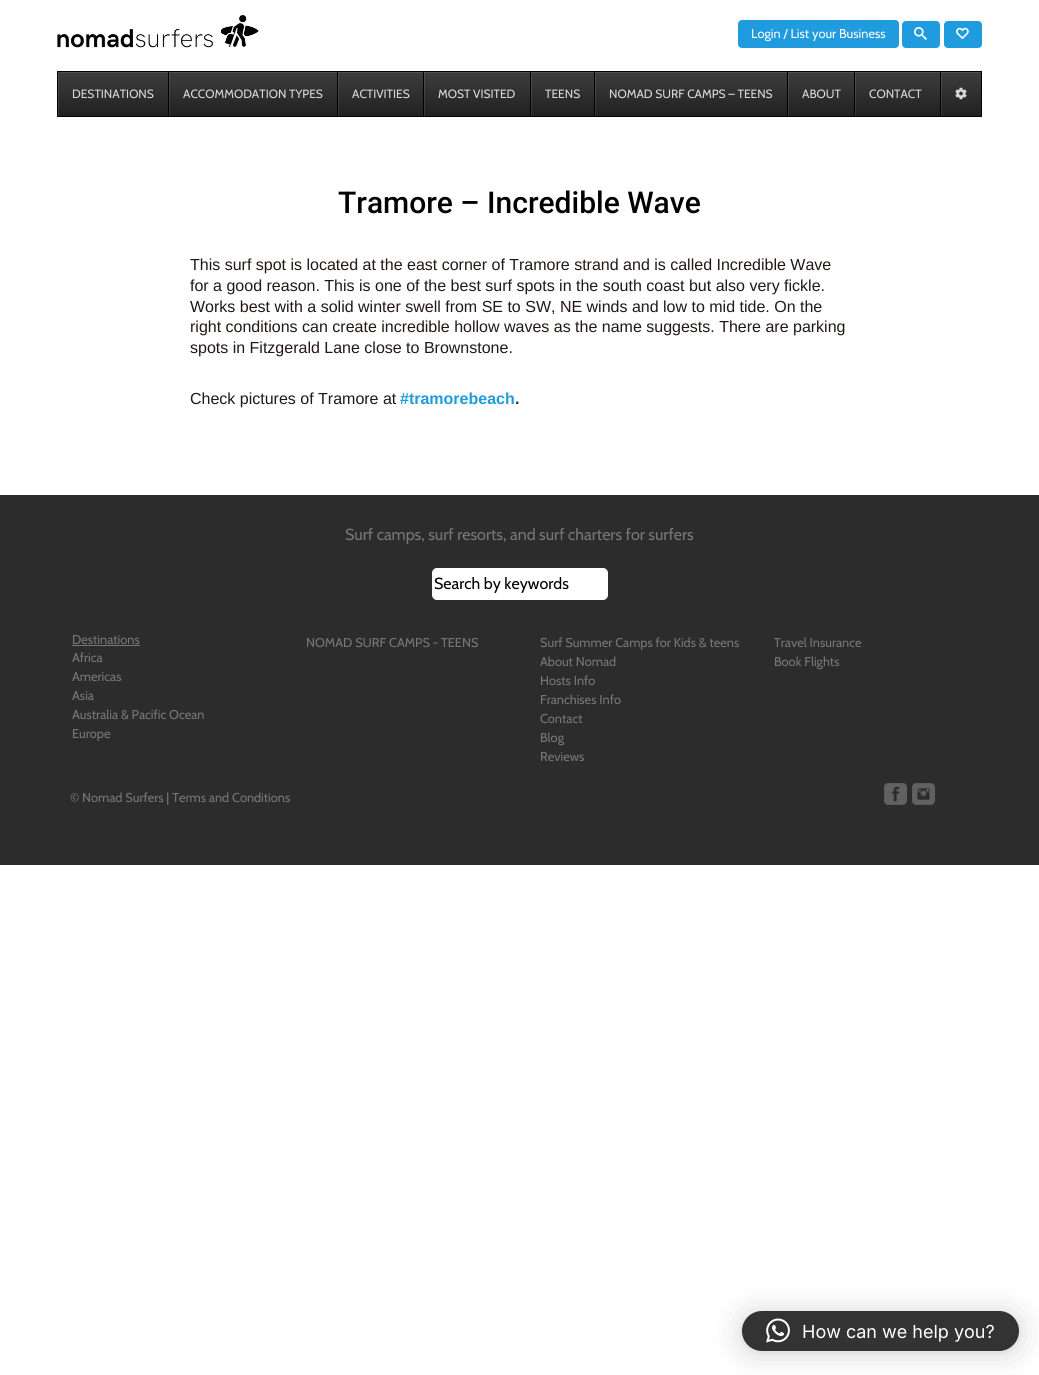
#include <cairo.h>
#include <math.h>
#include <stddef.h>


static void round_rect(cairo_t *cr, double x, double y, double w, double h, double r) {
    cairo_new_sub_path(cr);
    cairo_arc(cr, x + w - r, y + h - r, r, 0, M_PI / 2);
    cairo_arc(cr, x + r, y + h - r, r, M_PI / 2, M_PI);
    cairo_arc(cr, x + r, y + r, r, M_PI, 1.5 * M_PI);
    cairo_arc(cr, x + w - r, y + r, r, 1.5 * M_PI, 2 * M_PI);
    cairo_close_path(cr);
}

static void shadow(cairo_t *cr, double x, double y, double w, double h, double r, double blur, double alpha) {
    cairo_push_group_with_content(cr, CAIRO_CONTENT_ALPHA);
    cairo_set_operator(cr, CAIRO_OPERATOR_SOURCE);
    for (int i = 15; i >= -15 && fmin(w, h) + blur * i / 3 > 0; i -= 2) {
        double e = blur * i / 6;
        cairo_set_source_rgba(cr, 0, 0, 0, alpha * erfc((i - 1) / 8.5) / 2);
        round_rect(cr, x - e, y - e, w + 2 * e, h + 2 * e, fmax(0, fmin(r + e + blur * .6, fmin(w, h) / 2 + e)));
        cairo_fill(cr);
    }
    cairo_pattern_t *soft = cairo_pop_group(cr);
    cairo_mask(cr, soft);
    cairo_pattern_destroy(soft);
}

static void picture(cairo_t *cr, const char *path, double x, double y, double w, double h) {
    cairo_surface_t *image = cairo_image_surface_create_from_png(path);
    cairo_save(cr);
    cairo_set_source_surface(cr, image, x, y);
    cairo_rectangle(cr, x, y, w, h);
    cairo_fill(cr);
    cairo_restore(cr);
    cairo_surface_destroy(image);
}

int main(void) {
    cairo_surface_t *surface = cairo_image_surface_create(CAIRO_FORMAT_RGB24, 1039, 1375);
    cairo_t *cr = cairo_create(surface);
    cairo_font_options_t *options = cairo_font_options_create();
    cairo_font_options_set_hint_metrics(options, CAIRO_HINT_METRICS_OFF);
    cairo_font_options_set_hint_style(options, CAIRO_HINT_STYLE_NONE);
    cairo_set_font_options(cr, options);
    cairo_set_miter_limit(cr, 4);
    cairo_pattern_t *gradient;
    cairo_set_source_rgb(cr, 1, 1, 1);
    cairo_paint(cr);
    picture(cr, "img1.png", 57, 15, 202, 33);
    cairo_set_source_rgb(cr, 0.122, 0.608, 0.871);
    round_rect(cr, 738, 20, 161, 28, 4);
    cairo_fill(cr);
    cairo_select_font_face(cr, "Cabin", CAIRO_FONT_SLANT_NORMAL, CAIRO_FONT_WEIGHT_NORMAL);
    cairo_set_font_size(cr, 12.75);
    cairo_set_source_rgb(cr, 1, 1, 1);
    cairo_move_to(cr, 751, 38);
    cairo_show_text(cr, "Login / List your Business");
    cairo_set_source_rgb(cr, 0.122, 0.608, 0.871);
    round_rect(cr, 902, 21, 38, 27, 4);
    cairo_fill(cr);
    round_rect(cr, 944, 21, 38, 27, 4);
    cairo_fill(cr);
    picture(cr, "img2.png", 914, 27, 13, 13);
    picture(cr, "img3.png", 956, 27, 13, 12);
    gradient = cairo_pattern_create_linear(520, 72, 520, 116);
    cairo_pattern_add_color_stop_rgba(gradient, 0, 0.239, 0.239, 0.239, 1);
    cairo_pattern_add_color_stop_rgba(gradient, 1, 0.129, 0.129, 0.129, 1);
    cairo_set_source(cr, gradient);
    cairo_pattern_destroy(gradient);
    cairo_rectangle(cr, 58, 72, 923, 44);
    cairo_fill(cr);
    cairo_save(cr);
    cairo_rectangle(cr, 58, 72, 923, 44);
    cairo_clip(cr);
    cairo_set_source_rgba(cr, 1, 1, 1, 0.1);
    cairo_set_fill_rule(cr, CAIRO_FILL_RULE_EVEN_ODD);
    cairo_new_path(cr);
    cairo_move_to(cr, -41, -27);
    cairo_line_to(cr, 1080, -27);
    cairo_line_to(cr, 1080, 215);
    cairo_line_to(cr, -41, 215);
    cairo_close_path(cr);
    cairo_move_to(cr, 59, 73);
    cairo_line_to(cr, 982, 73);
    cairo_line_to(cr, 982, 117);
    cairo_line_to(cr, 59, 117);
    cairo_close_path(cr);
    cairo_fill(cr);
    cairo_restore(cr);
    cairo_rectangle(cr, 57.5, 71.5, 924, 45);
    cairo_set_source_rgb(cr, 0, 0, 0);
    cairo_set_line_width(cr, 1);
    cairo_stroke(cr);
    cairo_set_font_size(cr, 12);
    cairo_set_source_rgb(cr, 0.851, 0.851, 0.851);
    cairo_move_to(cr, 72, 98);
    cairo_show_text(cr, "DESTINATIONS");
    cairo_set_source_rgba(cr, 1, 1, 1, 0.1);
    cairo_rectangle(cr, 169, 72, 1, 44);
    cairo_fill(cr);
    cairo_set_source_rgb(cr, 0, 0, 0);
    cairo_rectangle(cr, 168, 72, 1, 44);
    cairo_fill(cr);
    cairo_set_source_rgb(cr, 0.851, 0.851, 0.851);
    cairo_move_to(cr, 183, 98);
    cairo_show_text(cr, "ACCOMMODATION TYPES");
    cairo_set_source_rgba(cr, 1, 1, 1, 0.1);
    cairo_rectangle(cr, 338, 72, 1, 44);
    cairo_fill(cr);
    cairo_set_source_rgb(cr, 0, 0, 0);
    cairo_rectangle(cr, 337, 72, 1, 44);
    cairo_fill(cr);
    cairo_set_source_rgb(cr, 0.851, 0.851, 0.851);
    cairo_move_to(cr, 352, 98);
    cairo_show_text(cr, "ACTIVITIES");
    cairo_set_source_rgba(cr, 1, 1, 1, 0.1);
    cairo_rectangle(cr, 424, 72, 1, 44);
    cairo_fill(cr);
    cairo_set_source_rgb(cr, 0, 0, 0);
    cairo_rectangle(cr, 423, 72, 1, 44);
    cairo_fill(cr);
    cairo_set_source_rgb(cr, 0.851, 0.851, 0.851);
    cairo_move_to(cr, 438, 98);
    cairo_show_text(cr, "MOST VISITED");
    cairo_set_source_rgba(cr, 1, 1, 1, 0.1);
    cairo_rectangle(cr, 531, 72, 1, 44);
    cairo_fill(cr);
    cairo_set_source_rgb(cr, 0, 0, 0);
    cairo_rectangle(cr, 530, 72, 1, 44);
    cairo_fill(cr);
    cairo_set_source_rgb(cr, 0.851, 0.851, 0.851);
    cairo_move_to(cr, 545, 98);
    cairo_show_text(cr, "TEENS");
    cairo_set_source_rgba(cr, 1, 1, 1, 0.1);
    cairo_rectangle(cr, 595, 72, 1, 44);
    cairo_fill(cr);
    cairo_set_source_rgb(cr, 0, 0, 0);
    cairo_rectangle(cr, 594, 72, 1, 44);
    cairo_fill(cr);
    cairo_set_source_rgb(cr, 0.851, 0.851, 0.851);
    cairo_move_to(cr, 609, 98);
    cairo_show_text(cr, "NOMAD SURF CAMPS – TEENS");
    cairo_set_source_rgba(cr, 1, 1, 1, 0.1);
    cairo_rectangle(cr, 788, 72, 1, 44);
    cairo_fill(cr);
    cairo_set_source_rgb(cr, 0, 0, 0);
    cairo_rectangle(cr, 787, 72, 1, 44);
    cairo_fill(cr);
    cairo_set_source_rgb(cr, 0.851, 0.851, 0.851);
    cairo_move_to(cr, 802, 98);
    cairo_show_text(cr, "ABOUT");
    cairo_set_source_rgba(cr, 1, 1, 1, 0.1);
    cairo_rectangle(cr, 855, 72, 1, 44);
    cairo_fill(cr);
    cairo_set_source_rgb(cr, 0, 0, 0);
    cairo_rectangle(cr, 854, 72, 1, 44);
    cairo_fill(cr);
    cairo_set_source_rgb(cr, 0.851, 0.851, 0.851);
    cairo_move_to(cr, 869, 98);
    cairo_show_text(cr, "CONTACT");
    cairo_set_source_rgba(cr, 1, 1, 1, 0.1);
    cairo_rectangle(cr, 941, 72, 1, 44);
    cairo_fill(cr);
    cairo_set_source_rgb(cr, 0, 0, 0);
    cairo_rectangle(cr, 940, 72, 1, 44);
    cairo_fill(cr);
    picture(cr, "img4.png", 955, 87, 12, 13);
    cairo_select_font_face(cr, "Roboto Medium", CAIRO_FONT_SLANT_NORMAL, CAIRO_FONT_WEIGHT_NORMAL);
    cairo_set_font_size(cr, 30);
    cairo_move_to(cr, 338, 213);
    cairo_show_text(cr, "Tramore – Incredible Wave");
    cairo_select_font_face(cr, "Arimo", CAIRO_FONT_SLANT_NORMAL, CAIRO_FONT_WEIGHT_NORMAL);
    cairo_set_font_size(cr, 16);
    cairo_set_source_rgb(cr, 0.129, 0.098, 0.082);
    cairo_move_to(cr, 190, 270);
    cairo_show_text(cr, "This surf spot is located at the east corner of Tramore strand and is called Incredible Wave");
    cairo_move_to(cr, 190, 291);
    cairo_show_text(cr, "for a good reason. This is one of the best surf spots in the south coast but also very fickle.");
    cairo_move_to(cr, 190, 312);
    cairo_show_text(cr, "Works best with a solid winter swell from SE to SW, NE winds and low to mid tide. On the");
    cairo_move_to(cr, 190, 332);
    cairo_show_text(cr, "right conditions can create incredible hollow waves as the name suggests. There are parking");
    cairo_move_to(cr, 190, 353);
    cairo_show_text(cr, "spots in Fitzgerald Lane close to Brownstone.");
    cairo_move_to(cr, 190, 404);
    cairo_show_text(cr, "Check pictures of Tramore at");
    cairo_select_font_face(cr, "Arimo", CAIRO_FONT_SLANT_NORMAL, CAIRO_FONT_WEIGHT_BOLD);
    cairo_set_source_rgb(cr, 0.122, 0.608, 0.871);
    cairo_move_to(cr, 400, 404);
    cairo_show_text(cr, "#tramorebeach");
    cairo_set_source_rgb(cr, 0.176, 0.173, 0.173);
    cairo_move_to(cr, 515, 404);
    cairo_show_text(cr, ".");
    cairo_rectangle(cr, 0, 495, 1039, 370);
    cairo_fill(cr);
    cairo_select_font_face(cr, "Cabin", CAIRO_FONT_SLANT_NORMAL, CAIRO_FONT_WEIGHT_NORMAL);
    cairo_set_source_rgb(cr, 0.467, 0.467, 0.467);
    cairo_move_to(cr, 345, 540);
    cairo_show_text(cr, "Surf camps, surf resorts, and surf charters for surfers");
    cairo_set_source_rgb(cr, 1, 1, 1);
    round_rect(cr, 432, 568, 176, 32, 5);
    cairo_fill(cr);
    cairo_set_source_rgb(cr, 0, 0, 0);
    cairo_move_to(cr, 434, 589);
    cairo_show_text(cr, "Search by keywords");
    cairo_set_font_size(cr, 12.75);
    cairo_set_source_rgb(cr, 0.467, 0.467, 0.467);
    cairo_move_to(cr, 72, 644);
    cairo_show_text(cr, "Destinations");
    cairo_rectangle(cr, 72, 645, 68, 1);
    cairo_fill(cr);
    cairo_move_to(cr, 72, 662);
    cairo_show_text(cr, "Africa");
    cairo_move_to(cr, 72, 681);
    cairo_show_text(cr, "Americas");
    cairo_move_to(cr, 72, 700);
    cairo_show_text(cr, "Asia");
    cairo_move_to(cr, 72, 719);
    cairo_show_text(cr, "Australia & Pacific Ocean");
    cairo_move_to(cr, 72, 738);
    cairo_show_text(cr, "Europe");
    cairo_move_to(cr, 306, 647);
    cairo_show_text(cr, "NOMAD SURF CAMPS - TEENS");
    cairo_move_to(cr, 540, 647);
    cairo_show_text(cr, "Surf Summer Camps for Kids & teens");
    cairo_move_to(cr, 540, 666);
    cairo_show_text(cr, "About Nomad");
    cairo_move_to(cr, 540, 685);
    cairo_show_text(cr, "Hosts Info");
    cairo_move_to(cr, 540, 704);
    cairo_show_text(cr, "Franchises Info");
    cairo_move_to(cr, 540, 723);
    cairo_show_text(cr, "Contact");
    cairo_move_to(cr, 540, 742);
    cairo_show_text(cr, "Blog");
    cairo_move_to(cr, 540, 761);
    cairo_show_text(cr, "Reviews");
    cairo_move_to(cr, 774, 647);
    cairo_show_text(cr, "Travel Insurance");
    cairo_move_to(cr, 774, 666);
    cairo_show_text(cr, "Book Flights");
    cairo_move_to(cr, 70, 802);
    cairo_show_text(cr, "© Nomad Surfers | Terms and Conditions");
    picture(cr, "img5.png", 884, 783, 23, 22);
    picture(cr, "img6.png", 912, 783, 23, 22);
    cairo_set_source_rgb(cr, 0, 0, 0);
    shadow(cr, 742, 1313, 277, 40, 20, 16, 0.16);
    shadow(cr, 742, 1312, 277, 40, 20, 3, 0.06);
    cairo_set_source_rgb(cr, 0.2, 0.2, 0.2);
    round_rect(cr, 742, 1311, 277, 40, 20);
    cairo_fill(cr);
    picture(cr, "img7.png", 766, 1318, 24, 25);
    cairo_select_font_face(cr, "Inter", CAIRO_FONT_SLANT_NORMAL, CAIRO_FONT_WEIGHT_NORMAL);
    cairo_set_font_size(cr, 18);
    cairo_set_source_rgb(cr, 1, 1, 1);
    cairo_move_to(cr, 802, 1338);
    cairo_show_text(cr, "How can we help you?");
    cairo_surface_write_to_png(surface, "page.png");
    cairo_font_options_destroy(options);
    cairo_destroy(cr);
    cairo_surface_destroy(surface);
    return 0;
}
